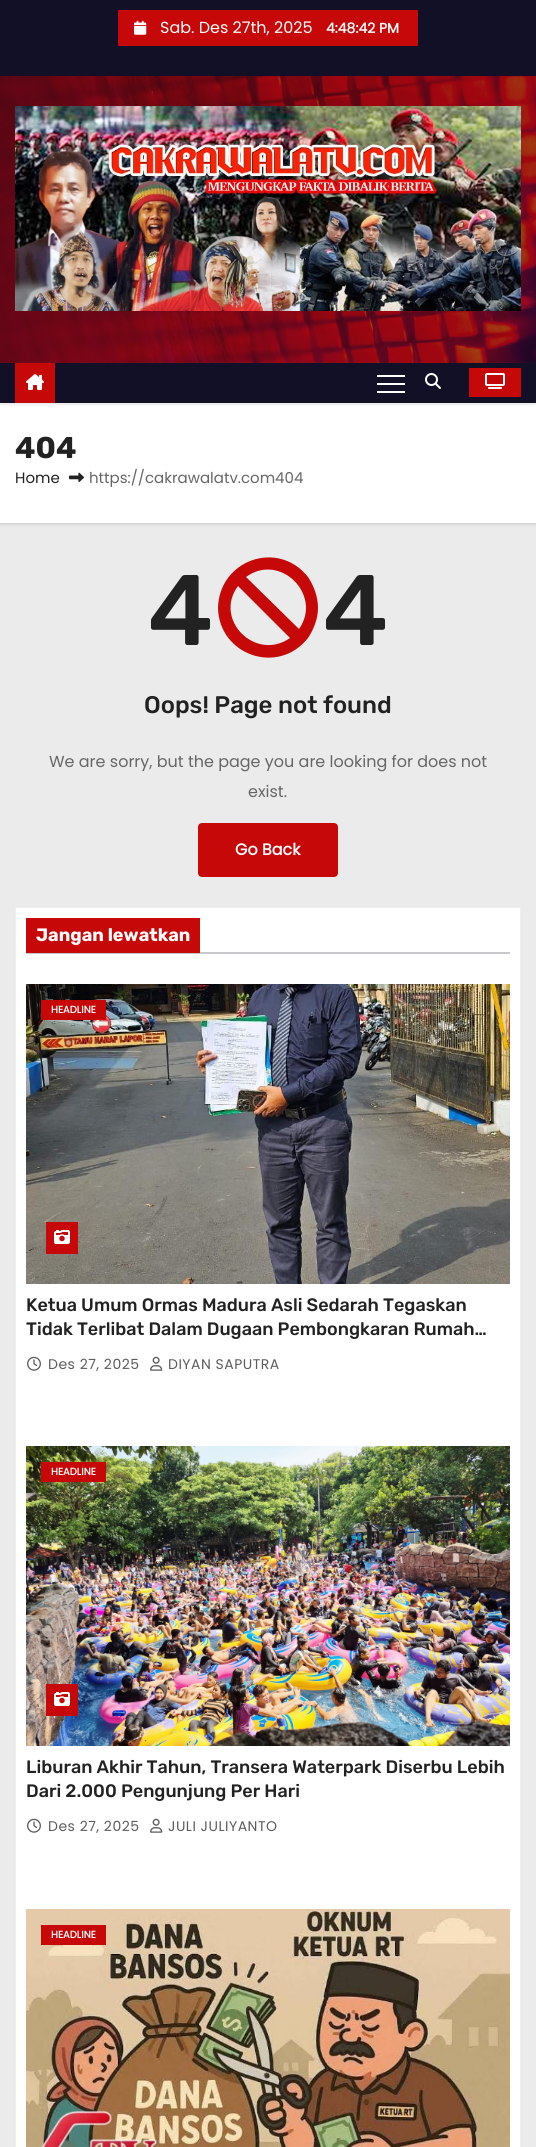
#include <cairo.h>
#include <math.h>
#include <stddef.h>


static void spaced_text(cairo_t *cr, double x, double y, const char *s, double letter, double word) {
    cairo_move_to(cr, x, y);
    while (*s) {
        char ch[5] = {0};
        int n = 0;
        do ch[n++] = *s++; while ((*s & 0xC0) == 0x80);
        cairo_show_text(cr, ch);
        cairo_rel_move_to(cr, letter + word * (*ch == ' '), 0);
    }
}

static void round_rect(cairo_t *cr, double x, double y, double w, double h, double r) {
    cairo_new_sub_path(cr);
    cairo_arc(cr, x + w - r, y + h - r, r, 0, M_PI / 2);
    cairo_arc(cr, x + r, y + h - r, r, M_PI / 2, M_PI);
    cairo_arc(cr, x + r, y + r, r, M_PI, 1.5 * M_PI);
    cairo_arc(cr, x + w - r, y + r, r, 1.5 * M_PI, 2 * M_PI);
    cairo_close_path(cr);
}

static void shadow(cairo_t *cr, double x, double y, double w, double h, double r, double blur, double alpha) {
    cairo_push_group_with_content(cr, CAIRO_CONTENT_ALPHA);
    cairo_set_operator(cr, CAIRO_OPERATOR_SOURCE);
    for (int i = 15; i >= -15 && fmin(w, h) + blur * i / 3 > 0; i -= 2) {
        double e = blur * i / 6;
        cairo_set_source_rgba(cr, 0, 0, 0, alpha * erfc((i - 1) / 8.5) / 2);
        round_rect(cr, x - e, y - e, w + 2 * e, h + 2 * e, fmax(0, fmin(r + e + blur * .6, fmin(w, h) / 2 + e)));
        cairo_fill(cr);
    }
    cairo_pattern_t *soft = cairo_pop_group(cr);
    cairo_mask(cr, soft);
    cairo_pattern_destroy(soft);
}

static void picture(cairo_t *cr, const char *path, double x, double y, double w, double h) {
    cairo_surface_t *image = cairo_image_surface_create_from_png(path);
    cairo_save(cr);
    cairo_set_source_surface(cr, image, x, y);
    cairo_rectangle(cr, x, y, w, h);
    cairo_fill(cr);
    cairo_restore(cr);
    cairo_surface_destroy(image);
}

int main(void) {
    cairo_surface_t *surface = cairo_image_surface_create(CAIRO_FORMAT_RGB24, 536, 2147);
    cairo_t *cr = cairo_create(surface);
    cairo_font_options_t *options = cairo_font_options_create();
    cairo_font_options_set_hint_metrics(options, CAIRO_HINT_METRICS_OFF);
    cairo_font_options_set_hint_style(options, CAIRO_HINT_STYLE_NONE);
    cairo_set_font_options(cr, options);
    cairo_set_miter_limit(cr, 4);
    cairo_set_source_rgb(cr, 0.918, 0.918, 0.918);
    cairo_paint(cr);
    cairo_set_source_rgb(cr, 0.071, 0.063, 0.149);
    cairo_rectangle(cr, 0, 0, 536, 76);
    cairo_fill(cr);
    cairo_set_source_rgb(cr, 0.78, 0.035, 0.035);
    cairo_rectangle(cr, 118, 10, 300, 36);
    cairo_fill(cr);
    picture(cr, "img1.png", 134, 20, 13, 15);
    cairo_select_font_face(cr, "Poppins", CAIRO_FONT_SLANT_NORMAL, CAIRO_FONT_WEIGHT_NORMAL);
    cairo_set_font_size(cr, 16);
    cairo_set_source_rgb(cr, 1, 1, 1);
    cairo_move_to(cr, 160, 33);
    cairo_show_text(cr, "Sab. Des 27th, 2025");
    cairo_select_font_face(cr, "Poppins", CAIRO_FONT_SLANT_NORMAL, CAIRO_FONT_WEIGHT_BOLD);
    cairo_set_font_size(cr, 14);
    cairo_move_to(cr, 326, 33);
    cairo_show_text(cr, "4:48:42 PM");
    picture(cr, "img2.png", 0, 76, 536, 287);
    picture(cr, "img3.png", 15, 106, 506, 205);
    cairo_set_source_rgb(cr, 0, 0, 0);
    shadow(cr, 0, 404, 536, 120, 0, 1.5, 0.15);
    cairo_set_source_rgb(cr, 1, 1, 1);
    cairo_rectangle(cr, 0, 403, 536, 120);
    cairo_fill(cr);
    cairo_set_source_rgb(cr, 0, 0, 0);
    shadow(cr, 0, 365, 536, 40, 0, 1, 0.08);
    cairo_set_source_rgb(cr, 0.071, 0.063, 0.149);
    cairo_rectangle(cr, 0, 363, 536, 40);
    cairo_fill(cr);
    cairo_set_source_rgb(cr, 0.78, 0.035, 0.035);
    cairo_rectangle(cr, 15, 363, 40, 40);
    cairo_fill(cr);
    picture(cr, "img4.png", 26, 374, 18, 16);
    cairo_set_source_rgb(cr, 1, 1, 1);
    cairo_rectangle(cr, 377, 375, 28, 2);
    cairo_fill(cr);
    cairo_rectangle(cr, 377, 383, 28, 2);
    cairo_fill(cr);
    cairo_rectangle(cr, 377, 391, 28, 2);
    cairo_fill(cr);
    picture(cr, "img5.png", 425, 373, 16, 16);
    cairo_set_source_rgb(cr, 0.78, 0.035, 0.035);
    cairo_rectangle(cr, 469, 368, 52, 29);
    cairo_fill(cr);
    picture(cr, "img6.png", 485, 373, 20, 16);
    cairo_select_font_face(cr, "Rubik", CAIRO_FONT_SLANT_NORMAL, CAIRO_FONT_WEIGHT_BOLD);
    cairo_set_font_size(cr, 30);
    cairo_set_source_rgb(cr, 0.133, 0.133, 0.133);
    cairo_move_to(cr, 15, 458);
    cairo_show_text(cr, "404");
    cairo_select_font_face(cr, "Poppins", CAIRO_FONT_SLANT_NORMAL, CAIRO_FONT_WEIGHT_NORMAL);
    cairo_set_font_size(cr, 15);
    cairo_move_to(cr, 15, 483);
    cairo_show_text(cr, "Home");
    picture(cr, "img7.png", 69, 472, 15, 10);
    cairo_set_source_rgb(cr, 0.4, 0.4, 0.4);
    cairo_move_to(cr, 89, 483);
    cairo_show_text(cr, "https://cakrawalatv.com404");
    cairo_select_font_face(cr, "Rubik Medium", CAIRO_FONT_SLANT_NORMAL, CAIRO_FONT_WEIGHT_NORMAL);
    cairo_set_font_size(cr, 100);
    cairo_set_source_rgb(cr, 0.133, 0.133, 0.133);
    cairo_move_to(cr, 148, 645);
    cairo_show_text(cr, "4");
    cairo_set_source_rgb(cr, 0.78, 0.035, 0.035);
    cairo_new_path(cr);
    cairo_move_to(cr, 290, 638);
    cairo_line_to(cr, 238, 586);
    cairo_curve_to(cr, 213, 620, 256, 662, 290, 638);
    cairo_close_path(cr);
    cairo_move_to(cr, 299, 629);
    cairo_curve_to(cr, 323, 595, 280, 552, 246, 577);
    cairo_close_path(cr);
    cairo_move_to(cr, 218, 608);
    cairo_curve_to(cr, 219, 560, 278, 539, 308, 577);
    cairo_curve_to(cr, 314, 586, 318, 597, 318, 608);
    cairo_curve_to(cr, 318, 618, 314, 629, 308, 638);
    cairo_curve_to(cr, 278, 676, 219, 655, 218, 608);
    cairo_close_path(cr);
    cairo_fill(cr);
    cairo_set_source_rgb(cr, 0.133, 0.133, 0.133);
    cairo_move_to(cr, 323, 645);
    cairo_show_text(cr, "4");
    cairo_set_font_size(cr, 24);
    cairo_move_to(cr, 144, 713);
    cairo_show_text(cr, "Oops! Page not found");
    cairo_select_font_face(cr, "Poppins", CAIRO_FONT_SLANT_NORMAL, CAIRO_FONT_WEIGHT_NORMAL);
    cairo_set_font_size(cr, 16);
    cairo_set_source_rgb(cr, 0.4, 0.4, 0.4);
    cairo_move_to(cr, 49, 767);
    cairo_show_text(cr, "We are sorry, but the page you are looking for does not");
    cairo_move_to(cr, 248, 797);
    cairo_show_text(cr, "exist.");
    cairo_set_source_rgb(cr, 0.78, 0.035, 0.035);
    round_rect(cr, 199, 824, 138, 52, 3);
    cairo_fill_preserve(cr);
    cairo_stroke(cr);
    cairo_select_font_face(cr, "Poppins", CAIRO_FONT_SLANT_NORMAL, CAIRO_FONT_WEIGHT_BOLD);
    cairo_set_source_rgb(cr, 1, 1, 1);
    cairo_move_to(cr, 235, 855);
    cairo_show_text(cr, "Go Back");
    cairo_rectangle(cr, 15.5, 907.5, 505, 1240);
    cairo_fill_preserve(cr);
    cairo_set_source_rgb(cr, 0.933, 0.933, 0.933);
    cairo_set_line_width(cr, 1);
    cairo_stroke(cr);
    cairo_set_source_rgb(cr, 0.784, 0.784, 0.804);
    cairo_rectangle(cr, 26, 952, 484, 2);
    cairo_fill(cr);
    cairo_set_source_rgb(cr, 0.78, 0.035, 0.035);
    cairo_rectangle(cr, 26, 918, 174, 35);
    cairo_fill(cr);
    cairo_select_font_face(cr, "Rubik", CAIRO_FONT_SLANT_NORMAL, CAIRO_FONT_WEIGHT_BOLD);
    cairo_set_font_size(cr, 18);
    cairo_set_source_rgb(cr, 1, 1, 1);
    cairo_move_to(cr, 36, 941);
    cairo_show_text(cr, "Jangan lewatkan");
    picture(cr, "img8.png", 26, 984, 484, 300);
    cairo_set_source_rgb(cr, 0.78, 0.035, 0.035);
    cairo_rectangle(cr, 41, 1000, 65, 20);
    cairo_fill(cr);
    cairo_select_font_face(cr, "Poppins", CAIRO_FONT_SLANT_NORMAL, CAIRO_FONT_WEIGHT_BOLD);
    cairo_set_font_size(cr, 10);
    cairo_set_source_rgb(cr, 1, 1, 1);
    cairo_move_to(cr, 51, 1013);
    cairo_show_text(cr, "HEADLINE");
    cairo_set_source_rgb(cr, 0.78, 0.035, 0.035);
    cairo_rectangle(cr, 46, 1222, 32, 32);
    cairo_fill(cr);
    picture(cr, "img9.png", 54, 1230, 16, 14);
    cairo_select_font_face(cr, "Rubik Medium", CAIRO_FONT_SLANT_NORMAL, CAIRO_FONT_WEIGHT_NORMAL);
    cairo_set_font_size(cr, 18);
    cairo_set_source_rgb(cr, 0.133, 0.133, 0.133);
    cairo_move_to(cr, 26, 1311);
    cairo_show_text(cr, "Ketua Umum Ormas Madura Asli Sedarah Tegaskan");
    cairo_move_to(cr, 26, 1335);
    cairo_show_text(cr, "Tidak Terlibat Dalam Dugaan Pembongkaran Rumah…");
    picture(cr, "img10.png", 27, 1356, 14, 15);
    cairo_select_font_face(cr, "Poppins", CAIRO_FONT_SLANT_NORMAL, CAIRO_FONT_WEIGHT_NORMAL);
    cairo_set_font_size(cr, 14);
    cairo_set_source_rgb(cr, 0.361, 0.361, 0.361);
    spaced_text(cr, 48, 1369, "Des 27, 2025", 0.5, 0);
    picture(cr, "img11.png", 150, 1356, 13, 15);
    spaced_text(cr, 168, 1369, "DIYAN SAPUTRA", 0.5, 0);
    picture(cr, "img12.png", 26, 1446, 484, 300);
    cairo_set_source_rgb(cr, 0.78, 0.035, 0.035);
    cairo_rectangle(cr, 41, 1462, 65, 20);
    cairo_fill(cr);
    cairo_select_font_face(cr, "Poppins", CAIRO_FONT_SLANT_NORMAL, CAIRO_FONT_WEIGHT_BOLD);
    cairo_set_font_size(cr, 10);
    cairo_set_source_rgb(cr, 1, 1, 1);
    cairo_move_to(cr, 51, 1475);
    cairo_show_text(cr, "HEADLINE");
    cairo_set_source_rgb(cr, 0.78, 0.035, 0.035);
    cairo_rectangle(cr, 46, 1684, 32, 32);
    cairo_fill(cr);
    picture(cr, "img9.png", 54, 1692, 16, 14);
    cairo_select_font_face(cr, "Rubik Medium", CAIRO_FONT_SLANT_NORMAL, CAIRO_FONT_WEIGHT_NORMAL);
    cairo_set_font_size(cr, 18);
    cairo_set_source_rgb(cr, 0.133, 0.133, 0.133);
    cairo_move_to(cr, 26, 1773);
    cairo_show_text(cr, "Liburan Akhir Tahun, Transera Waterpark Diserbu Lebih");
    cairo_move_to(cr, 26, 1797);
    cairo_show_text(cr, "Dari 2.000 Pengunjung Per Hari");
    picture(cr, "img10.png", 27, 1818, 14, 15);
    cairo_select_font_face(cr, "Poppins", CAIRO_FONT_SLANT_NORMAL, CAIRO_FONT_WEIGHT_NORMAL);
    cairo_set_font_size(cr, 14);
    cairo_set_source_rgb(cr, 0.361, 0.361, 0.361);
    spaced_text(cr, 48, 1831, "Des 27, 2025", 0.5, 0);
    picture(cr, "img11.png", 150, 1818, 13, 15);
    spaced_text(cr, 168, 1831, "JULI JULIYANTO", 0.5, 0);
    picture(cr, "img13.png", 26, 1909, 484, 238);
    cairo_set_source_rgb(cr, 0.78, 0.035, 0.035);
    cairo_rectangle(cr, 41, 1925, 65, 20);
    cairo_fill(cr);
    cairo_select_font_face(cr, "Poppins", CAIRO_FONT_SLANT_NORMAL, CAIRO_FONT_WEIGHT_BOLD);
    cairo_set_font_size(cr, 10);
    cairo_set_source_rgb(cr, 1, 1, 1);
    cairo_move_to(cr, 51, 1938);
    cairo_show_text(cr, "HEADLINE");
    cairo_surface_write_to_png(surface, "page.png");
    cairo_font_options_destroy(options);
    cairo_destroy(cr);
    cairo_surface_destroy(surface);
    return 0;
}
